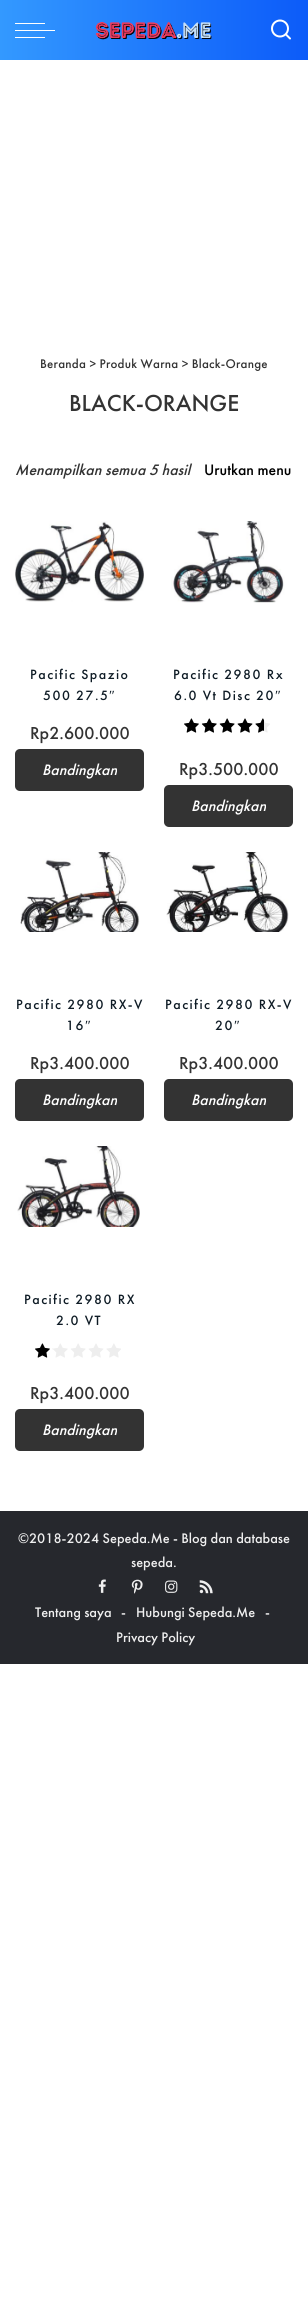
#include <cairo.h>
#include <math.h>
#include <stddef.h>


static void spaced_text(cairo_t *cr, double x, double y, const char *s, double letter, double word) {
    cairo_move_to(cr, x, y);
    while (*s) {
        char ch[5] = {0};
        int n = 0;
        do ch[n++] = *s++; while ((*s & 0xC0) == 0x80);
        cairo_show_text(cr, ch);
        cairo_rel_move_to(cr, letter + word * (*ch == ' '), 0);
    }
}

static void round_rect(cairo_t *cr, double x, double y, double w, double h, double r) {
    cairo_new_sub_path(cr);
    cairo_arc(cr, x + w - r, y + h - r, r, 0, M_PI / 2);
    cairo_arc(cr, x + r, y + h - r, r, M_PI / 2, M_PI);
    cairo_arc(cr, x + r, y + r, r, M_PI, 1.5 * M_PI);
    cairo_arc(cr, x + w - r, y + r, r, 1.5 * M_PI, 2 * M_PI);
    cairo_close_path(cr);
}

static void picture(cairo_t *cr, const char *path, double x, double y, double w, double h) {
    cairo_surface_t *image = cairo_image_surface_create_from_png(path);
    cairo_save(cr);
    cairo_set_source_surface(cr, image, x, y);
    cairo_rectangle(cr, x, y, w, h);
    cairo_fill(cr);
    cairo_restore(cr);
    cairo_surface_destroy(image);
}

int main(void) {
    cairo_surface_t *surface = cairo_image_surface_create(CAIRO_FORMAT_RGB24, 308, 2303);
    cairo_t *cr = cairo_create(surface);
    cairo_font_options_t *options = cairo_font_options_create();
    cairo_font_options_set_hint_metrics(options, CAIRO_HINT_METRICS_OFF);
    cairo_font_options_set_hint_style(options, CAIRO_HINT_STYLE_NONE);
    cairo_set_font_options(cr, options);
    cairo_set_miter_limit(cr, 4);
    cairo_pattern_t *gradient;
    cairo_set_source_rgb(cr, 1, 1, 1);
    cairo_paint(cr);
    gradient = cairo_pattern_create_linear(0, 30, 308, 30);
    cairo_pattern_add_color_stop_rgba(gradient, 0, 0.2, 0.6, 1, 1);
    cairo_pattern_add_color_stop_rgba(gradient, 1, 0.047, 0.357, 0.976, 1);
    cairo_set_source(cr, gradient);
    cairo_pattern_destroy(gradient);
    cairo_rectangle(cr, 0, 0, 308, 60);
    cairo_fill(cr);
    cairo_set_source_rgb(cr, 1, 1, 1);
    cairo_rectangle(cr, 15, 30, 40, 1);
    cairo_fill(cr);
    cairo_rectangle(cr, 15, 23, 30, 1);
    cairo_fill(cr);
    cairo_rectangle(cr, 15, 37, 30, 1);
    cairo_fill(cr);
    picture(cr, "img1.png", 95, 22, 117, 18);
    picture(cr, "img2.png", 271, 19, 20, 21);
    cairo_select_font_face(cr, "Futura PT Medium", CAIRO_FONT_SLANT_NORMAL, CAIRO_FONT_WEIGHT_NORMAL);
    cairo_set_font_size(cr, 13);
    cairo_set_source_rgb(cr, 0.2, 0.2, 0.2);
    spaced_text(cr, 40, 368, "Beranda > Produk Warna > Black-Orange", 0.25, 0);
    cairo_set_font_size(cr, 24);
    cairo_move_to(cr, 69, 411);
    cairo_show_text(cr, "BLACK-ORANGE");
    cairo_select_font_face(cr, "Futura PT Medium", CAIRO_FONT_SLANT_ITALIC, CAIRO_FONT_WEIGHT_NORMAL);
    cairo_set_font_size(cr, 15.75);
    cairo_move_to(cr, 15, 475);
    cairo_show_text(cr, "Menampilkan semua 5 hasil");
    cairo_select_font_face(cr, "Futura PT Medium", CAIRO_FONT_SLANT_NORMAL, CAIRO_FONT_WEIGHT_NORMAL);
    cairo_set_source_rgb(cr, 0, 0, 0);
    cairo_move_to(cr, 204, 475);
    cairo_show_text(cr, "Urutkan menu");
    picture(cr, "img3.png", 15, 521, 129, 81);
    cairo_set_font_size(cr, 14);
    cairo_set_source_rgb(cr, 0.055, 0.106, 0.145);
    spaced_text(cr, 30, 679, "Pacific Spazio", 1.5, 0);
    spaced_text(cr, 43, 700, "500 27.5", 1.5, 0);
    cairo_select_font_face(cr, "Liberation Serif", CAIRO_FONT_SLANT_NORMAL, CAIRO_FONT_WEIGHT_NORMAL);
    spaced_text(cr, 109, 700, "″", 1.5, 0);
    cairo_select_font_face(cr, "Futura PT Medium", CAIRO_FONT_SLANT_NORMAL, CAIRO_FONT_WEIGHT_NORMAL);
    cairo_set_font_size(cr, 18);
    cairo_set_source_rgb(cr, 0.2, 0.2, 0.2);
    cairo_move_to(cr, 30, 739);
    cairo_show_text(cr, "Rp2.600.000");
    round_rect(cr, 15, 749, 129, 42, 5);
    cairo_fill(cr);
    cairo_select_font_face(cr, "Futura PT Medium", CAIRO_FONT_SLANT_ITALIC, CAIRO_FONT_WEIGHT_NORMAL);
    cairo_set_font_size(cr, 15.75);
    cairo_set_source_rgb(cr, 1, 1, 1);
    cairo_move_to(cr, 42, 775);
    cairo_show_text(cr, "Bandingkan");
    picture(cr, "img4.png", 171, 521, 114, 82);
    cairo_select_font_face(cr, "Futura PT Medium", CAIRO_FONT_SLANT_NORMAL, CAIRO_FONT_WEIGHT_NORMAL);
    cairo_set_font_size(cr, 14);
    cairo_set_source_rgb(cr, 0.055, 0.106, 0.145);
    spaced_text(cr, 173, 679, "Pacific 2980 Rx", 1.5, 0);
    spaced_text(cr, 174, 700, "6.0 Vt Disc 20", 1.5, 0);
    cairo_select_font_face(cr, "Liberation Serif", CAIRO_FONT_SLANT_NORMAL, CAIRO_FONT_WEIGHT_NORMAL);
    spaced_text(cr, 275, 700, "″", 1.5, 0);
    picture(cr, "img5.png", 184, 718, 86, 15);
    picture(cr, "img6.png", 184, 718, 80, 15);
    cairo_select_font_face(cr, "Futura PT Medium", CAIRO_FONT_SLANT_NORMAL, CAIRO_FONT_WEIGHT_NORMAL);
    cairo_set_font_size(cr, 18);
    cairo_set_source_rgb(cr, 0.2, 0.2, 0.2);
    cairo_move_to(cr, 179, 775);
    cairo_show_text(cr, "Rp3.500.000");
    round_rect(cr, 164, 785, 129, 42, 5);
    cairo_fill(cr);
    cairo_select_font_face(cr, "Futura PT Medium", CAIRO_FONT_SLANT_ITALIC, CAIRO_FONT_WEIGHT_NORMAL);
    cairo_set_font_size(cr, 15.75);
    cairo_set_source_rgb(cr, 1, 1, 1);
    cairo_move_to(cr, 191, 811);
    cairo_show_text(cr, "Bandingkan");
    picture(cr, "img7.png", 20, 852, 120, 80);
    cairo_select_font_face(cr, "Futura PT Medium", CAIRO_FONT_SLANT_NORMAL, CAIRO_FONT_WEIGHT_NORMAL);
    cairo_set_font_size(cr, 14);
    cairo_set_source_rgb(cr, 0.055, 0.106, 0.145);
    spaced_text(cr, 16, 1009, "Pacific 2980 RX-V", 1.5, 0);
    spaced_text(cr, 66, 1030, "16", 1.5, 0);
    cairo_select_font_face(cr, "Liberation Serif", CAIRO_FONT_SLANT_NORMAL, CAIRO_FONT_WEIGHT_NORMAL);
    spaced_text(cr, 85, 1030, "″", 1.5, 0);
    cairo_select_font_face(cr, "Futura PT Medium", CAIRO_FONT_SLANT_NORMAL, CAIRO_FONT_WEIGHT_NORMAL);
    cairo_set_font_size(cr, 18);
    cairo_set_source_rgb(cr, 0.2, 0.2, 0.2);
    cairo_move_to(cr, 30, 1069);
    cairo_show_text(cr, "Rp3.400.000");
    round_rect(cr, 15, 1079, 129, 42, 5);
    cairo_fill(cr);
    cairo_select_font_face(cr, "Futura PT Medium", CAIRO_FONT_SLANT_ITALIC, CAIRO_FONT_WEIGHT_NORMAL);
    cairo_set_font_size(cr, 15.75);
    cairo_set_source_rgb(cr, 1, 1, 1);
    cairo_move_to(cr, 42, 1105);
    cairo_show_text(cr, "Bandingkan");
    picture(cr, "img8.png", 166, 852, 123, 80);
    cairo_select_font_face(cr, "Futura PT Medium", CAIRO_FONT_SLANT_NORMAL, CAIRO_FONT_WEIGHT_NORMAL);
    cairo_set_font_size(cr, 14);
    cairo_set_source_rgb(cr, 0.055, 0.106, 0.145);
    spaced_text(cr, 165, 1009, "Pacific 2980 RX-V", 1.5, 0);
    spaced_text(cr, 215, 1030, "20", 1.5, 0);
    cairo_select_font_face(cr, "Liberation Serif", CAIRO_FONT_SLANT_NORMAL, CAIRO_FONT_WEIGHT_NORMAL);
    spaced_text(cr, 234, 1030, "″", 1.5, 0);
    cairo_select_font_face(cr, "Futura PT Medium", CAIRO_FONT_SLANT_NORMAL, CAIRO_FONT_WEIGHT_NORMAL);
    cairo_set_font_size(cr, 18);
    cairo_set_source_rgb(cr, 0.2, 0.2, 0.2);
    cairo_move_to(cr, 179, 1069);
    cairo_show_text(cr, "Rp3.400.000");
    round_rect(cr, 164, 1079, 129, 42, 5);
    cairo_fill(cr);
    cairo_select_font_face(cr, "Futura PT Medium", CAIRO_FONT_SLANT_ITALIC, CAIRO_FONT_WEIGHT_NORMAL);
    cairo_set_font_size(cr, 15.75);
    cairo_set_source_rgb(cr, 1, 1, 1);
    cairo_move_to(cr, 191, 1105);
    cairo_show_text(cr, "Bandingkan");
    picture(cr, "img9.png", 17, 1146, 123, 81);
    cairo_select_font_face(cr, "Futura PT Medium", CAIRO_FONT_SLANT_NORMAL, CAIRO_FONT_WEIGHT_NORMAL);
    cairo_set_font_size(cr, 14);
    cairo_set_source_rgb(cr, 0.055, 0.106, 0.145);
    spaced_text(cr, 24, 1304, "Pacific 2980 RX", 1.5, 0);
    spaced_text(cr, 56, 1325, "2.0 VT", 1.5, 0);
    picture(cr, "img5.png", 35, 1343, 86, 15);
    picture(cr, "img10.png", 35, 1343, 18, 15);
    cairo_set_font_size(cr, 18);
    cairo_set_source_rgb(cr, 0.2, 0.2, 0.2);
    cairo_move_to(cr, 30, 1399);
    cairo_show_text(cr, "Rp3.400.000");
    round_rect(cr, 15, 1409, 129, 42, 5);
    cairo_fill(cr);
    cairo_select_font_face(cr, "Futura PT Medium", CAIRO_FONT_SLANT_ITALIC, CAIRO_FONT_WEIGHT_NORMAL);
    cairo_set_font_size(cr, 15.75);
    cairo_set_source_rgb(cr, 1, 1, 1);
    cairo_move_to(cr, 42, 1435);
    cairo_show_text(cr, "Bandingkan");
    cairo_set_source_rgb(cr, 0.149, 0.157, 0.176);
    cairo_rectangle(cr, 0, 1511, 308, 153);
    cairo_fill(cr);
    cairo_select_font_face(cr, "Futura PT Medium", CAIRO_FONT_SLANT_NORMAL, CAIRO_FONT_WEIGHT_NORMAL);
    cairo_set_font_size(cr, 14.4);
    cairo_set_source_rgb(cr, 0.937, 0.937, 0.937);
    cairo_move_to(cr, 18, 1543);
    cairo_show_text(cr, "©2018-2024 Sepeda.Me - Blog dan database");
    cairo_move_to(cr, 131, 1567);
    cairo_show_text(cr, "sepeda.");
    picture(cr, "img11.png", 98, 1579, 8, 14);
    picture(cr, "img12.png", 131, 1579, 12, 15);
    picture(cr, "img13.png", 165, 1580, 13, 13);
    picture(cr, "img14.png", 199, 1580, 14, 14);
    cairo_move_to(cr, 35, 1617);
    cairo_show_text(cr, "Tentang saya");
    cairo_move_to(cr, 121, 1617);
    cairo_show_text(cr, "-");
    cairo_move_to(cr, 136, 1617);
    cairo_show_text(cr, "Hubungi Sepeda.Me");
    cairo_move_to(cr, 265, 1617);
    cairo_show_text(cr, "-");
    cairo_move_to(cr, 116, 1642);
    cairo_show_text(cr, "Privacy Policy");
    cairo_surface_write_to_png(surface, "page.png");
    cairo_font_options_destroy(options);
    cairo_destroy(cr);
    cairo_surface_destroy(surface);
    return 0;
}
